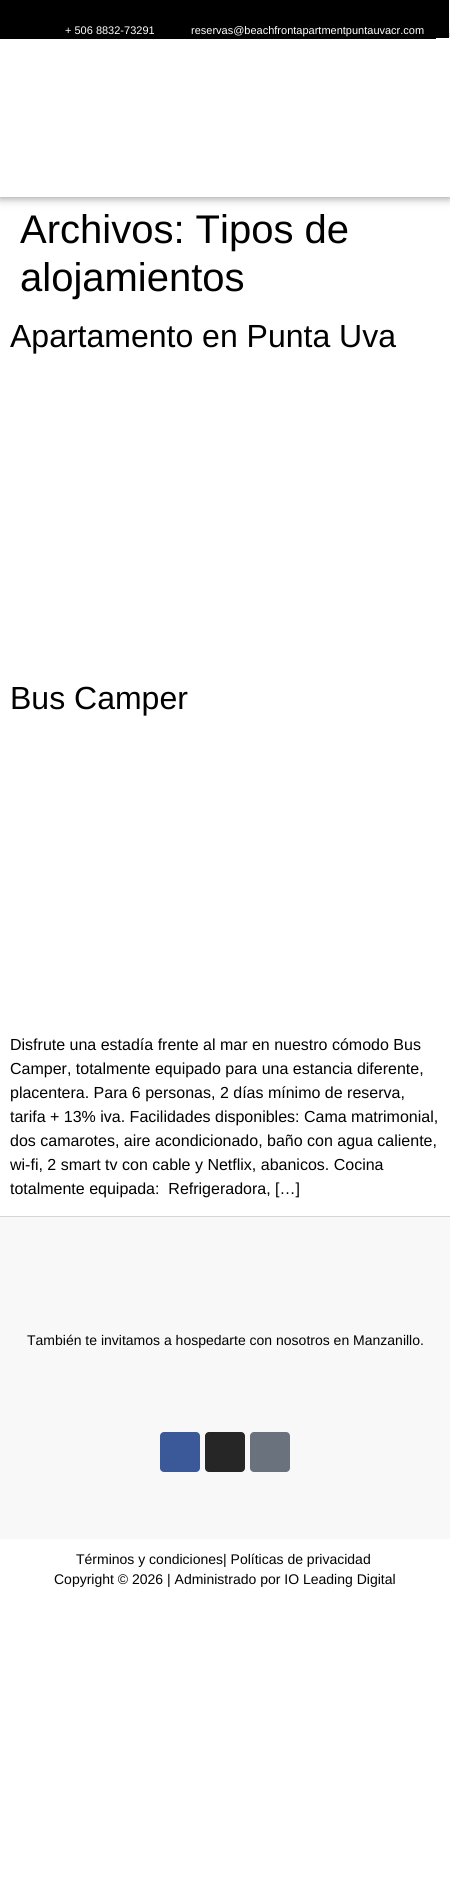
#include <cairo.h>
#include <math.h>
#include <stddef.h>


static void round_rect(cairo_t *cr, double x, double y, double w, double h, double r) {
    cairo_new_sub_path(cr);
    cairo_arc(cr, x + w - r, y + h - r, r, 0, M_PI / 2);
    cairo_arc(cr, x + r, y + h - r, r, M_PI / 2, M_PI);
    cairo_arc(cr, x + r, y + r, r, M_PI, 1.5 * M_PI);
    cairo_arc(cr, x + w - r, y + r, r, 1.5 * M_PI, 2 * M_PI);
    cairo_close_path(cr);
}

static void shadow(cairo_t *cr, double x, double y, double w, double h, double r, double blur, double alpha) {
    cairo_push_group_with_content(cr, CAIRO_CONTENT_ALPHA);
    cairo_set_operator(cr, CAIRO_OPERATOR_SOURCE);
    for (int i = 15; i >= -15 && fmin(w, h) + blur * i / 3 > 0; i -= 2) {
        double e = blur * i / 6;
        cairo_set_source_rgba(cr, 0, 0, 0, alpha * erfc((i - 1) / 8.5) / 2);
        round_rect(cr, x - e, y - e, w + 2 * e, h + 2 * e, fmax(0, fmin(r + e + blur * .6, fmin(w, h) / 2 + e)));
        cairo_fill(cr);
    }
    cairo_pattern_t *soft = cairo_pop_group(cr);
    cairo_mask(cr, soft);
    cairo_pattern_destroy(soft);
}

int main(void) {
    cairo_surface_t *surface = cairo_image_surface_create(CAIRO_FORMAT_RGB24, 450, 1893);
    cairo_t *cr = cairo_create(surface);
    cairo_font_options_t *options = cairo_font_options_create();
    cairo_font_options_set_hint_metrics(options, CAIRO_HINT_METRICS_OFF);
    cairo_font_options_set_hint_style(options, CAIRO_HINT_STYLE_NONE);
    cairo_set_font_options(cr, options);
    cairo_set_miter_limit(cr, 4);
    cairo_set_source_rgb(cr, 1, 1, 1);
    cairo_paint(cr);
    cairo_set_source_rgb(cr, 0, 0, 0);
    cairo_rectangle(cr, 0, 0, 449, 38);
    cairo_fill(cr);
    cairo_rectangle(cr, 0, 38, 436, 1);
    cairo_fill(cr);
    cairo_save(cr);
    cairo_set_fill_rule(cr, CAIRO_FILL_RULE_EVEN_ODD);
    cairo_new_path(cr);
    cairo_move_to(cr, 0, 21);
    cairo_line_to(cr, 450, 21);
    cairo_line_to(cr, 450, 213);
    cairo_line_to(cr, 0, 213);
    cairo_close_path(cr);
    cairo_move_to(cr, 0, 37);
    cairo_line_to(cr, 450, 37);
    cairo_line_to(cr, 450, 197);
    cairo_line_to(cr, 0, 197);
    cairo_close_path(cr);
    cairo_clip(cr);
    cairo_set_source_rgb(cr, 0, 0, 0);
    shadow(cr, 0, 37, 450, 160, 0, 5, 0.5);
    cairo_restore(cr);
    cairo_select_font_face(cr, "Liberation Sans", CAIRO_FONT_SLANT_NORMAL, CAIRO_FONT_WEIGHT_NORMAL);
    cairo_set_font_size(cr, 11);
    cairo_set_source_rgb(cr, 1, 1, 1);
    cairo_move_to(cr, 65, 34);
    cairo_show_text(cr, "+ 506 8832-73291");
    cairo_move_to(cr, 191, 34);
    cairo_show_text(cr, "reservas@beachfrontapartmentpuntauvacr.com");
    cairo_set_font_size(cr, 40);
    cairo_set_source_rgb(cr, 0, 0, 0);
    cairo_move_to(cr, 20, 243);
    cairo_show_text(cr, "Archivos: Tipos de");
    cairo_move_to(cr, 20, 291);
    cairo_show_text(cr, "alojamientos");
    cairo_set_font_size(cr, 32);
    cairo_move_to(cr, 10, 347);
    cairo_show_text(cr, "Apartamento en Punta Uva");
    cairo_move_to(cr, 10, 709);
    cairo_show_text(cr, "Bus Camper");
    cairo_set_font_size(cr, 16);
    cairo_move_to(cr, 10, 1050);
    cairo_show_text(cr, "Disfrute una estadía frente al mar en nuestro cómodo Bus");
    cairo_move_to(cr, 10, 1074);
    cairo_show_text(cr, "Camper, totalmente equipado para una estancia diferente,");
    cairo_move_to(cr, 10, 1098);
    cairo_show_text(cr, "placentera. Para 6 personas, 2 días mínimo de reserva,");
    cairo_move_to(cr, 10, 1122);
    cairo_show_text(cr, "tarifa + 13% iva. Facilidades disponibles: Cama matrimonial,");
    cairo_move_to(cr, 10, 1146);
    cairo_show_text(cr, "dos camarotes, aire acondicionado, baño con agua caliente,");
    cairo_move_to(cr, 10, 1170);
    cairo_show_text(cr, "wi-fi, 2 smart tv con cable y Netflix, abanicos. Cocina");
    cairo_move_to(cr, 10, 1194);
    cairo_show_text(cr, "totalmente equipada:  Refrigeradora, […]");
    cairo_set_source_rgb(cr, 0.969, 0.969, 0.969);
    cairo_rectangle(cr, 0, 1217, 450, 322);
    cairo_fill(cr);
    cairo_set_source_rgb(cr, 0.835, 0.835, 0.835);
    cairo_rectangle(cr, 0, 1216, 450, 1);
    cairo_fill(cr);
    cairo_set_font_size(cr, 14);
    cairo_set_source_rgb(cr, 0, 0, 0);
    cairo_move_to(cr, 27, 1345);
    cairo_show_text(cr, "También te invitamos a hospedarte con nosotros en Manzanillo.");
    cairo_set_source_rgb(cr, 0.231, 0.349, 0.596);
    round_rect(cr, 160, 1432, 40, 40, 4);
    cairo_fill(cr);
    cairo_set_source_rgb(cr, 0.149, 0.149, 0.149);
    round_rect(cr, 205, 1432, 40, 40, 4);
    cairo_fill(cr);
    cairo_set_source_rgb(cr, 0.412, 0.447, 0.49);
    round_rect(cr, 250, 1432, 40, 40, 4);
    cairo_fill(cr);
    cairo_set_source_rgb(cr, 0, 0, 0);
    cairo_move_to(cr, 76, 1564);
    cairo_show_text(cr, "Términos y condiciones| Políticas de privacidad");
    cairo_move_to(cr, 54, 1584);
    cairo_show_text(cr, "Copyright © 2026 | Administrado por IO Leading Digital");
    cairo_surface_write_to_png(surface, "page.png");
    cairo_font_options_destroy(options);
    cairo_destroy(cr);
    cairo_surface_destroy(surface);
    return 0;
}
